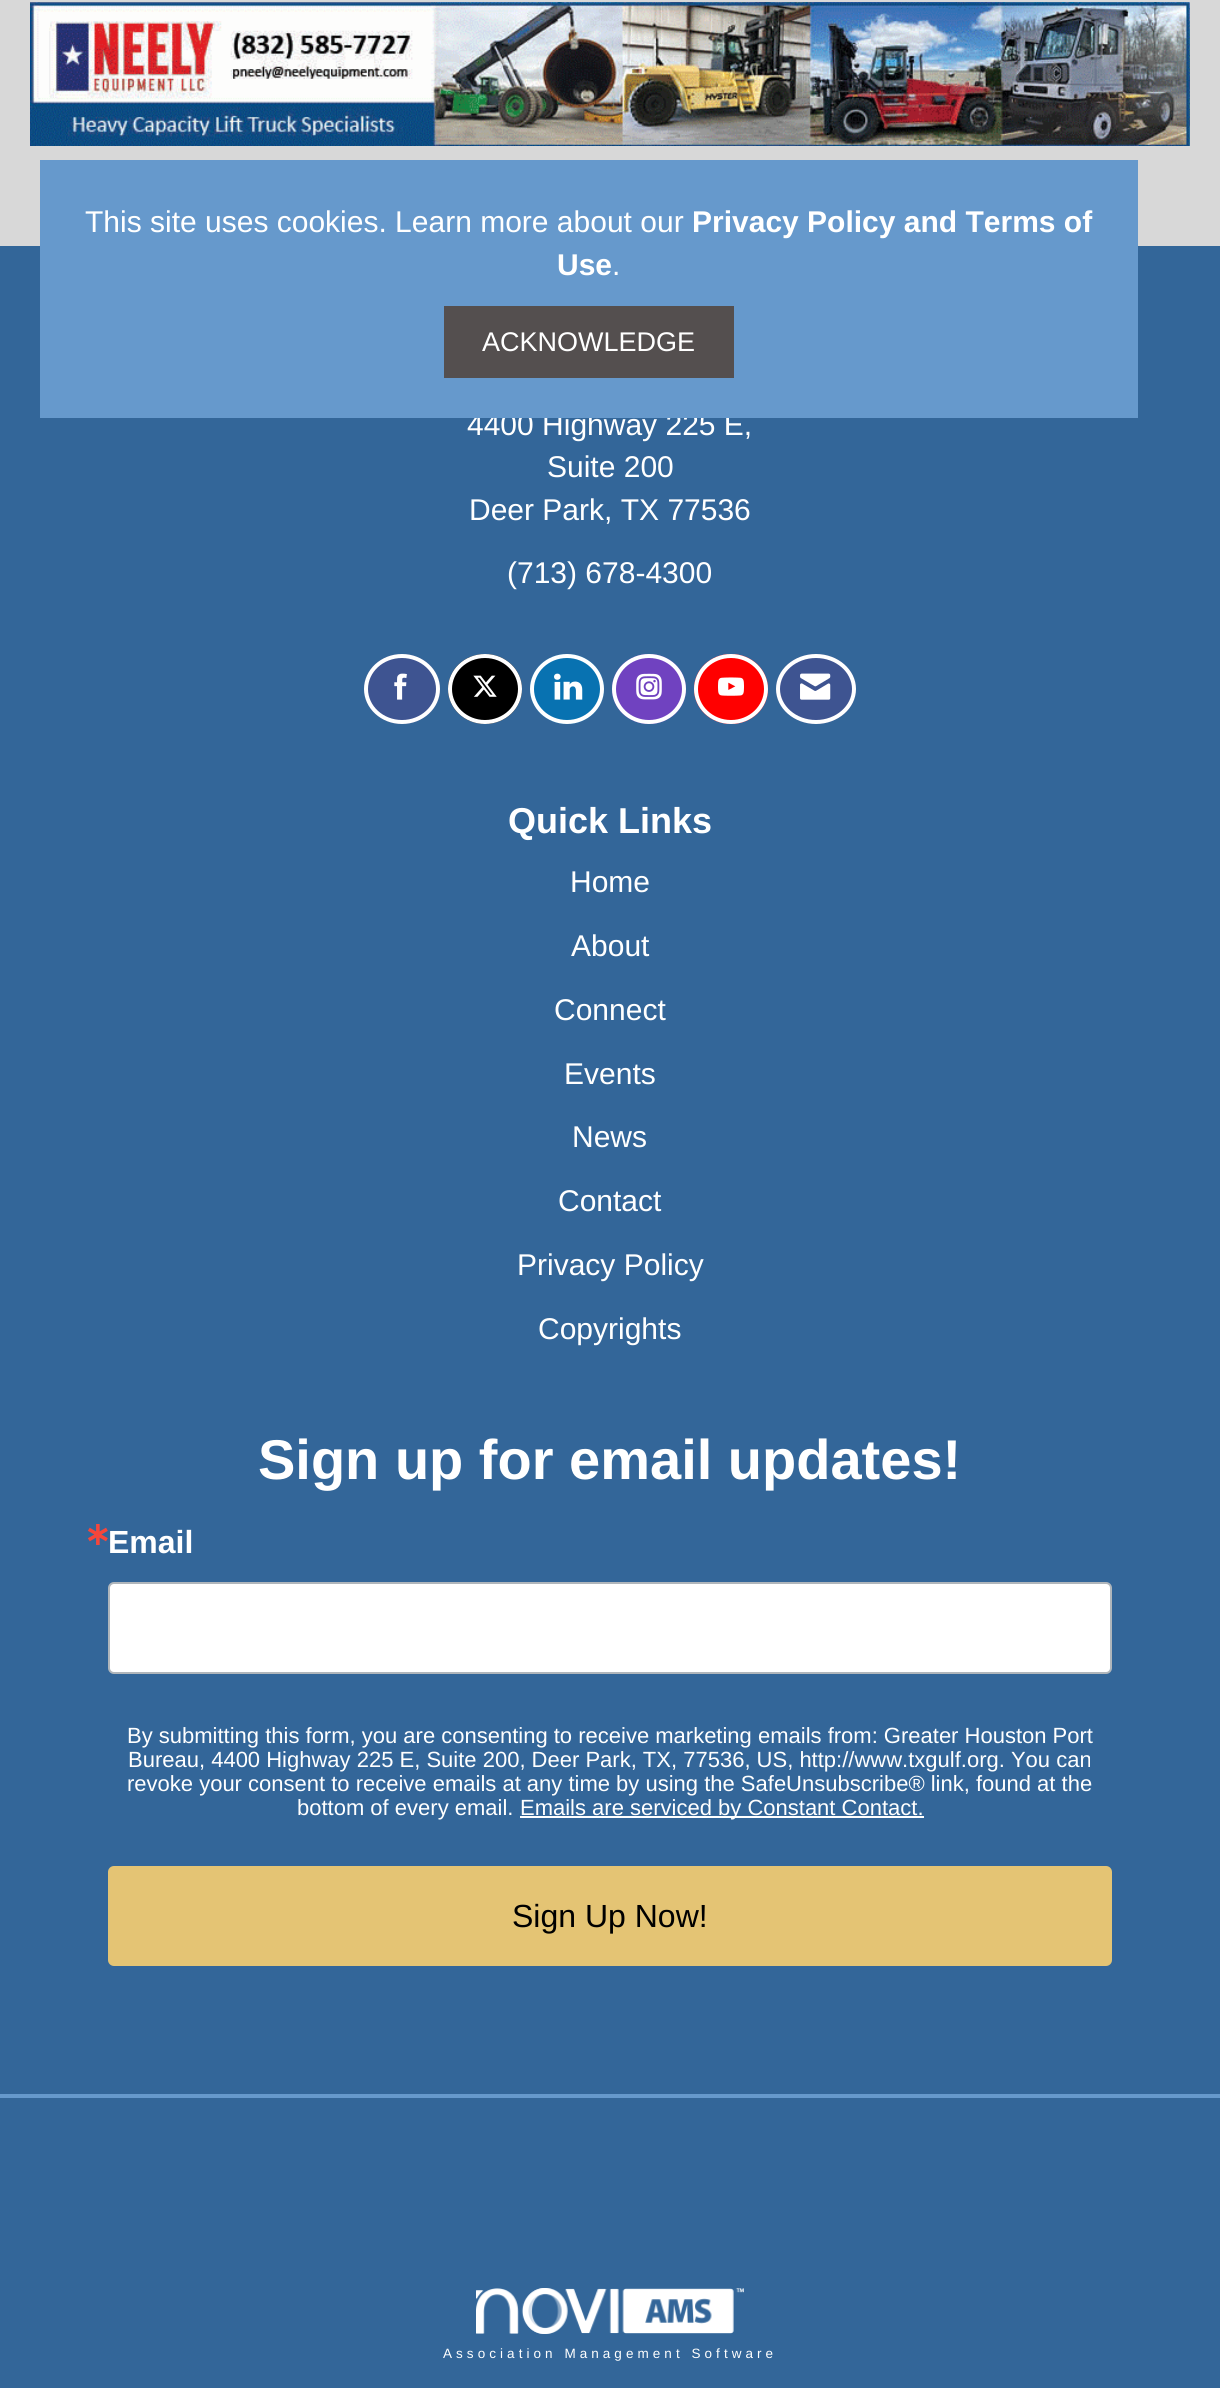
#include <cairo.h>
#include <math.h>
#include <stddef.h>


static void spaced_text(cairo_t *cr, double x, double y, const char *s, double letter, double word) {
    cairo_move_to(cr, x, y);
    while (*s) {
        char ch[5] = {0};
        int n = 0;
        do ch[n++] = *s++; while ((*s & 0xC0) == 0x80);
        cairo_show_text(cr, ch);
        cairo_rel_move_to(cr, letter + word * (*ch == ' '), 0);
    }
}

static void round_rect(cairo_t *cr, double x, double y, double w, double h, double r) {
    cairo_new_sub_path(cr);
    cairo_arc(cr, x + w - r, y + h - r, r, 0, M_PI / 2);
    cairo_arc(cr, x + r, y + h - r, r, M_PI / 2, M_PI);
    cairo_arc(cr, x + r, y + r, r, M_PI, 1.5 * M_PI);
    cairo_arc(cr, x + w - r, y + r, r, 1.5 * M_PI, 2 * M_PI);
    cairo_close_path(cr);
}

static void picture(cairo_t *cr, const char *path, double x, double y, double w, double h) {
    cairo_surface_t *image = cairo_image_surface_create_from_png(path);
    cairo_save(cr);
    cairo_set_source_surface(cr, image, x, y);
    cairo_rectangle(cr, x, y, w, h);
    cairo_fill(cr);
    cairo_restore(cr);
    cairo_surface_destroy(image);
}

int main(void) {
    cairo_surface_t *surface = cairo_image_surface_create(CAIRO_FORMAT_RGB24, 1220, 2388);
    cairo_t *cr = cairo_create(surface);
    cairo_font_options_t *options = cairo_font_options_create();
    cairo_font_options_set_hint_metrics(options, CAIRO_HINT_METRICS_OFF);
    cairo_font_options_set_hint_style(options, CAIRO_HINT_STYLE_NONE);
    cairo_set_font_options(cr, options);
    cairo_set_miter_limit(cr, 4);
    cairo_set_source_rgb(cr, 0.847, 0.847, 0.847);
    cairo_paint(cr);
    cairo_set_source_rgb(cr, 0.2, 0.4, 0.6);
    cairo_rectangle(cr, 0, 246, 1220, 1848);
    cairo_fill(cr);
    cairo_select_font_face(cr, "Liberation Sans", CAIRO_FONT_SLANT_NORMAL, CAIRO_FONT_WEIGHT_NORMAL);
    cairo_set_font_size(cr, 30);
    cairo_set_source_rgb(cr, 1, 1, 1);
    cairo_move_to(cr, 467, 435);
    cairo_show_text(cr, "4400 Highway 225 E,");
    cairo_set_source_rgb(cr, 0.4, 0.6, 0.8);
    cairo_rectangle(cr, 40, 160, 1098, 258);
    cairo_fill(cr);
    cairo_set_source_rgb(cr, 1, 1, 1);
    cairo_move_to(cr, 85, 232);
    cairo_show_text(cr, "This site uses cookies. Learn more about our");
    cairo_select_font_face(cr, "Liberation Sans", CAIRO_FONT_SLANT_NORMAL, CAIRO_FONT_WEIGHT_BOLD);
    cairo_move_to(cr, 692, 232);
    cairo_show_text(cr, "Privacy Policy and Terms of");
    cairo_move_to(cr, 557, 275);
    cairo_show_text(cr, "Use");
    cairo_select_font_face(cr, "Liberation Sans", CAIRO_FONT_SLANT_NORMAL, CAIRO_FONT_WEIGHT_NORMAL);
    cairo_move_to(cr, 612, 275);
    cairo_show_text(cr, ".");
    cairo_set_source_rgb(cr, 0.329, 0.31, 0.31);
    cairo_rectangle(cr, 444, 306, 290, 72);
    cairo_fill(cr);
    cairo_set_font_size(cr, 27);
    cairo_set_source_rgb(cr, 1, 1, 1);
    cairo_move_to(cr, 482, 351);
    cairo_show_text(cr, "ACKNOWLEDGE");
    picture(cr, "img1.png", 30, 2, 1160, 144);
    cairo_set_font_size(cr, 30);
    cairo_move_to(cr, 547, 477);
    cairo_show_text(cr, "Suite 200");
    cairo_move_to(cr, 469, 520);
    cairo_show_text(cr, "Deer Park, TX 77536");
    cairo_move_to(cr, 507, 583);
    cairo_show_text(cr, "(713) 678-4300");
    cairo_set_source_rgb(cr, 0.243, 0.329, 0.569);
    cairo_new_path(cr);
    cairo_move_to(cr, 402, 654);
    cairo_curve_to(cr, 423, 654, 440, 669.5, 440, 689);
    cairo_curve_to(cr, 440, 708.5, 423, 724, 402, 724);
    cairo_curve_to(cr, 381, 724, 364, 708.5, 364, 689);
    cairo_curve_to(cr, 364, 669.5, 381, 654, 402, 654);
    cairo_close_path(cr);
    cairo_fill(cr);
    cairo_new_path(cr);
    cairo_move_to(cr, 402, 656);
    cairo_curve_to(cr, 422, 656, 438, 671, 438, 689);
    cairo_curve_to(cr, 438, 707, 422, 722, 402, 722);
    cairo_curve_to(cr, 382, 722, 366, 707, 366, 689);
    cairo_curve_to(cr, 366, 671, 382, 656, 402, 656);
    cairo_close_path(cr);
    cairo_set_source_rgb(cr, 1, 1, 1);
    cairo_set_line_width(cr, 4);
    cairo_stroke(cr);
    picture(cr, "img2.png", 394, 673, 13, 27);
    cairo_set_source_rgb(cr, 0, 0, 0);
    cairo_new_path(cr);
    cairo_move_to(cr, 485, 654);
    cairo_curve_to(cr, 505.5, 654, 522, 669.5, 522, 689);
    cairo_curve_to(cr, 522, 708.5, 505.5, 724, 485, 724);
    cairo_curve_to(cr, 464.5, 724, 448, 708.5, 448, 689);
    cairo_curve_to(cr, 448, 669.5, 464.5, 654, 485, 654);
    cairo_close_path(cr);
    cairo_fill(cr);
    cairo_new_path(cr);
    cairo_move_to(cr, 485, 656);
    cairo_curve_to(cr, 504.5, 656, 520, 671, 520, 689);
    cairo_curve_to(cr, 520, 707, 504.5, 722, 485, 722);
    cairo_curve_to(cr, 465.5, 722, 450, 707, 450, 689);
    cairo_curve_to(cr, 450, 671, 465.5, 656, 485, 656);
    cairo_close_path(cr);
    cairo_set_source_rgb(cr, 1, 1, 1);
    cairo_stroke(cr);
    picture(cr, "img3.png", 473, 675, 24, 22);
    cairo_set_source_rgb(cr, 0.035, 0.447, 0.694);
    cairo_new_path(cr);
    cairo_move_to(cr, 567, 654);
    cairo_curve_to(cr, 587.5, 654, 604, 669.5, 604, 689);
    cairo_curve_to(cr, 604, 708.5, 587.5, 724, 567, 724);
    cairo_curve_to(cr, 546.5, 724, 530, 708.5, 530, 689);
    cairo_curve_to(cr, 530, 669.5, 546.5, 654, 567, 654);
    cairo_close_path(cr);
    cairo_fill(cr);
    cairo_new_path(cr);
    cairo_move_to(cr, 567, 656);
    cairo_curve_to(cr, 586.5, 656, 602, 671, 602, 689);
    cairo_curve_to(cr, 602, 707, 586.5, 722, 567, 722);
    cairo_curve_to(cr, 547.5, 722, 532, 707, 532, 689);
    cairo_curve_to(cr, 532, 671, 547.5, 656, 567, 656);
    cairo_close_path(cr);
    cairo_set_source_rgb(cr, 1, 1, 1);
    cairo_stroke(cr);
    picture(cr, "img4.png", 554, 673, 29, 27);
    cairo_set_source_rgb(cr, 0.439, 0.259, 0.753);
    cairo_new_path(cr);
    cairo_move_to(cr, 649, 654);
    cairo_curve_to(cr, 669.5, 654, 686, 669.5, 686, 689);
    cairo_curve_to(cr, 686, 708.5, 669.5, 724, 649, 724);
    cairo_curve_to(cr, 628.5, 724, 612, 708.5, 612, 689);
    cairo_curve_to(cr, 612, 669.5, 628.5, 654, 649, 654);
    cairo_close_path(cr);
    cairo_fill(cr);
    cairo_new_path(cr);
    cairo_move_to(cr, 649, 656);
    cairo_curve_to(cr, 668.5, 656, 684, 671, 684, 689);
    cairo_curve_to(cr, 684, 707, 668.5, 722, 649, 722);
    cairo_curve_to(cr, 629.5, 722, 614, 707, 614, 689);
    cairo_curve_to(cr, 614, 671, 629.5, 656, 649, 656);
    cairo_close_path(cr);
    cairo_set_source_rgb(cr, 1, 1, 1);
    cairo_stroke(cr);
    picture(cr, "img5.png", 636, 673, 26, 27);
    cairo_set_source_rgb(cr, 1, 0, 0);
    cairo_new_path(cr);
    cairo_move_to(cr, 731, 654);
    cairo_curve_to(cr, 751.5, 654, 768, 669.5, 768, 689);
    cairo_curve_to(cr, 768, 708.5, 751.5, 724, 731, 724);
    cairo_curve_to(cr, 710.5, 724, 694, 708.5, 694, 689);
    cairo_curve_to(cr, 694, 669.5, 710.5, 654, 731, 654);
    cairo_close_path(cr);
    cairo_fill(cr);
    cairo_new_path(cr);
    cairo_move_to(cr, 731, 656);
    cairo_curve_to(cr, 750.5, 656, 766, 671, 766, 689);
    cairo_curve_to(cr, 766, 707, 750.5, 722, 731, 722);
    cairo_curve_to(cr, 711.5, 722, 696, 707, 696, 689);
    cairo_curve_to(cr, 696, 671, 711.5, 656, 731, 656);
    cairo_close_path(cr);
    cairo_set_source_rgb(cr, 1, 1, 1);
    cairo_stroke(cr);
    picture(cr, "img6.png", 718, 677, 26, 19);
    cairo_set_source_rgb(cr, 0.243, 0.329, 0.569);
    cairo_new_path(cr);
    cairo_move_to(cr, 816, 654);
    cairo_curve_to(cr, 838, 654, 856, 669.5, 856, 689);
    cairo_curve_to(cr, 856, 708.5, 838, 724, 816, 724);
    cairo_curve_to(cr, 794, 724, 776, 708.5, 776, 689);
    cairo_curve_to(cr, 776, 669.5, 794, 654, 816, 654);
    cairo_close_path(cr);
    cairo_fill(cr);
    cairo_new_path(cr);
    cairo_move_to(cr, 816, 656);
    cairo_curve_to(cr, 837, 656, 854, 671, 854, 689);
    cairo_curve_to(cr, 854, 707, 837, 722, 816, 722);
    cairo_curve_to(cr, 795, 722, 778, 707, 778, 689);
    cairo_curve_to(cr, 778, 671, 795, 656, 816, 656);
    cairo_close_path(cr);
    cairo_set_source_rgb(cr, 1, 1, 1);
    cairo_stroke(cr);
    picture(cr, "img7.png", 800, 673, 31, 27);
    cairo_select_font_face(cr, "Liberation Sans", CAIRO_FONT_SLANT_NORMAL, CAIRO_FONT_WEIGHT_BOLD);
    cairo_set_font_size(cr, 36);
    cairo_move_to(cr, 508, 833);
    cairo_show_text(cr, "Quick Links");
    cairo_select_font_face(cr, "Liberation Sans", CAIRO_FONT_SLANT_NORMAL, CAIRO_FONT_WEIGHT_NORMAL);
    cairo_set_font_size(cr, 30);
    cairo_move_to(cr, 570, 892);
    cairo_show_text(cr, "Home");
    cairo_move_to(cr, 571, 956);
    cairo_show_text(cr, "About");
    cairo_move_to(cr, 554, 1020);
    cairo_show_text(cr, "Connect");
    cairo_move_to(cr, 564, 1084);
    cairo_show_text(cr, "Events");
    cairo_move_to(cr, 572, 1147);
    cairo_show_text(cr, "News");
    cairo_move_to(cr, 558, 1211);
    cairo_show_text(cr, "Contact");
    cairo_move_to(cr, 517, 1275);
    cairo_show_text(cr, "Privacy Policy");
    cairo_move_to(cr, 538, 1339);
    cairo_show_text(cr, "Copyrights");
    cairo_select_font_face(cr, "Liberation Sans", CAIRO_FONT_SLANT_NORMAL, CAIRO_FONT_WEIGHT_BOLD);
    cairo_set_font_size(cr, 56);
    cairo_move_to(cr, 258, 1479);
    cairo_show_text(cr, "Sign up for email updates!");
    cairo_select_font_face(cr, "DejaVu Sans", CAIRO_FONT_SLANT_NORMAL, CAIRO_FONT_WEIGHT_BOLD);
    cairo_set_font_size(cr, 32);
    cairo_set_source_rgb(cr, 0.961, 0.275, 0.231);
    cairo_move_to(cr, 84, 1545);
    cairo_show_text(cr, "∗");
    cairo_select_font_face(cr, "Liberation Sans", CAIRO_FONT_SLANT_NORMAL, CAIRO_FONT_WEIGHT_BOLD);
    cairo_set_source_rgb(cr, 1, 1, 1);
    cairo_move_to(cr, 108, 1553);
    cairo_show_text(cr, "Email");
    round_rect(cr, 109, 1583, 1002, 90, 5);
    cairo_fill_preserve(cr);
    cairo_set_source_rgb(cr, 0.69, 0.714, 0.733);
    cairo_set_line_width(cr, 2);
    cairo_stroke(cr);
    cairo_select_font_face(cr, "Liberation Sans", CAIRO_FONT_SLANT_NORMAL, CAIRO_FONT_WEIGHT_NORMAL);
    cairo_set_font_size(cr, 22);
    cairo_set_source_rgb(cr, 1, 1, 1);
    cairo_move_to(cr, 127, 1743);
    cairo_show_text(cr, "By submitting this form, you are consenting to receive marketing emails from: Greater Houston Port");
    cairo_move_to(cr, 128, 1767);
    cairo_show_text(cr, "Bureau, 4400 Highway 225 E, Suite 200, Deer Park, TX, 77536, US, http://www.txgulf.org. You can");
    cairo_move_to(cr, 127, 1791);
    cairo_show_text(cr, "revoke your consent to receive emails at any time by using the SafeUnsubscribe® link, found at the");
    cairo_move_to(cr, 297, 1815);
    cairo_show_text(cr, "bottom of every email.");
    cairo_rectangle(cr, 520, 1816, 404, 2);
    cairo_fill(cr);
    cairo_move_to(cr, 520, 1815);
    cairo_show_text(cr, "Emails are serviced by Constant Contact.");
    cairo_set_source_rgb(cr, 0.894, 0.769, 0.455);
    round_rect(cr, 109, 1867, 1002, 98, 5);
    cairo_fill_preserve(cr);
    cairo_stroke(cr);
    cairo_set_font_size(cr, 32);
    cairo_set_source_rgb(cr, 0, 0, 0);
    cairo_move_to(cr, 512, 1927);
    cairo_show_text(cr, "Sign Up Now!");
    cairo_set_source_rgb(cr, 0.2, 0.4, 0.6);
    cairo_rectangle(cr, 0, 2098, 1220, 290);
    cairo_fill(cr);
    cairo_set_source_rgb(cr, 0.4, 0.6, 0.8);
    cairo_rectangle(cr, 0, 2094, 1220, 4);
    cairo_fill(cr);
    picture(cr, "img8.png", 476, 2288, 268, 46);
    cairo_set_font_size(cr, 13.5);
    cairo_set_source_rgb(cr, 1, 1, 1);
    spaced_text(cr, 443, 2358, "Association Management Software", 4.05, 0);
    cairo_surface_write_to_png(surface, "page.png");
    cairo_font_options_destroy(options);
    cairo_destroy(cr);
    cairo_surface_destroy(surface);
    return 0;
}
